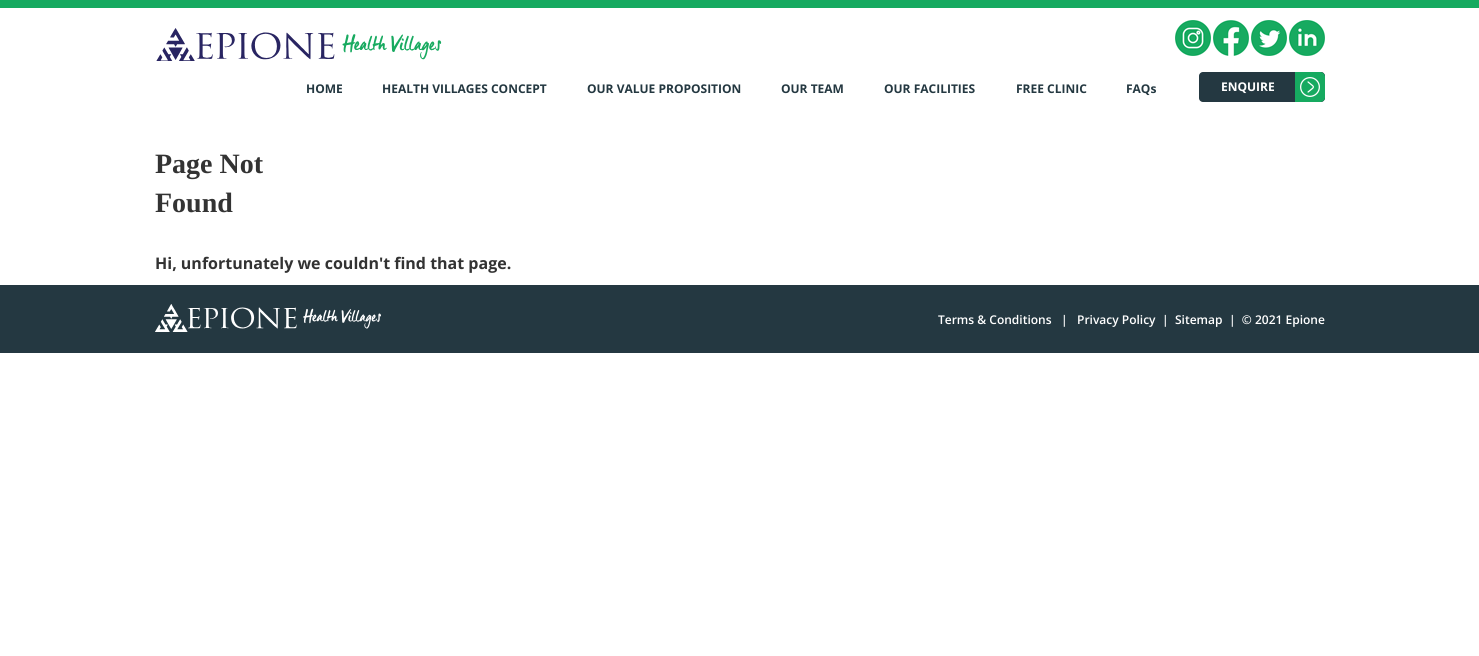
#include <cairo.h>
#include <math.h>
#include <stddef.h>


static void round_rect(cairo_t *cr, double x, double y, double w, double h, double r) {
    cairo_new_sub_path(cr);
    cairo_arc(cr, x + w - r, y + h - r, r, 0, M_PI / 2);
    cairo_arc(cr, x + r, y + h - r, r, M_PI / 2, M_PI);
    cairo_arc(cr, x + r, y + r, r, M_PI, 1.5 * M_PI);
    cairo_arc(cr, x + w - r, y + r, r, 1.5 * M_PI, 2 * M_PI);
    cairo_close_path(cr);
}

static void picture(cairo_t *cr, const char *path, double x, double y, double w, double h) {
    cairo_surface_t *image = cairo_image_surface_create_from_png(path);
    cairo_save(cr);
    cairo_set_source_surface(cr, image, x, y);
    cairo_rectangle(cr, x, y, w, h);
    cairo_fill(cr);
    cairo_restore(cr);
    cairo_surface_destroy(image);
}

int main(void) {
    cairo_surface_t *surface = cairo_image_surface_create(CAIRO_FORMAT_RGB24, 1479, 656);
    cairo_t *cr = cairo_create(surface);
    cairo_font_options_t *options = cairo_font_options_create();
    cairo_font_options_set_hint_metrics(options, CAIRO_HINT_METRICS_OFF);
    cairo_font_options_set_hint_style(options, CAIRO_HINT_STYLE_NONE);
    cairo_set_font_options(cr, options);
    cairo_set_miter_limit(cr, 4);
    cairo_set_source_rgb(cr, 1, 1, 1);
    cairo_paint(cr);
    cairo_set_source_rgb(cr, 0.086, 0.667, 0.376);
    cairo_rectangle(cr, 0, 0, 1479, 8);
    cairo_fill(cr);
    picture(cr, "img1.png", 156, 28, 286, 33);
    picture(cr, "img2.png", 1175, 20, 36, 36);
    picture(cr, "img3.png", 1213, 20, 36, 36);
    picture(cr, "img4.png", 1251, 20, 36, 36);
    picture(cr, "img5.png", 1289, 20, 36, 36);
    cairo_select_font_face(cr, "Open Sans", CAIRO_FONT_SLANT_NORMAL, CAIRO_FONT_WEIGHT_BOLD);
    cairo_set_font_size(cr, 12);
    cairo_set_source_rgb(cr, 0.141, 0.22, 0.255);
    cairo_move_to(cr, 306, 93);
    cairo_show_text(cr, "HOME");
    cairo_move_to(cr, 382, 93);
    cairo_show_text(cr, "HEALTH VILLAGES CONCEPT");
    cairo_move_to(cr, 587, 93);
    cairo_show_text(cr, "OUR VALUE PROPOSITION");
    cairo_move_to(cr, 781, 93);
    cairo_show_text(cr, "OUR TEAM");
    cairo_move_to(cr, 884, 93);
    cairo_show_text(cr, "OUR FACILITIES");
    cairo_move_to(cr, 1016, 93);
    cairo_show_text(cr, "FREE CLINIC");
    cairo_move_to(cr, 1126, 93);
    cairo_show_text(cr, "FAQs");
    round_rect(cr, 1199, 72, 126, 30, 4);
    cairo_fill(cr);
    picture(cr, "img6.png", 1295, 72, 30, 30);
    cairo_set_source_rgb(cr, 1, 1, 1);
    cairo_move_to(cr, 1221, 91);
    cairo_show_text(cr, "ENQUIRE");
    cairo_select_font_face(cr, "Liberation Serif", CAIRO_FONT_SLANT_NORMAL, CAIRO_FONT_WEIGHT_BOLD);
    cairo_set_font_size(cr, 28);
    cairo_set_source_rgb(cr, 0.2, 0.2, 0.2);
    cairo_move_to(cr, 155, 173);
    cairo_show_text(cr, "Page Not");
    cairo_move_to(cr, 155, 212);
    cairo_show_text(cr, "Found");
    cairo_select_font_face(cr, "Open Sans", CAIRO_FONT_SLANT_NORMAL, CAIRO_FONT_WEIGHT_BOLD);
    cairo_set_font_size(cr, 16);
    cairo_move_to(cr, 155, 269);
    cairo_show_text(cr, "Hi, unfortunately we couldn't find that page.");
    cairo_set_source_rgb(cr, 0.141, 0.22, 0.255);
    cairo_rectangle(cr, 0, 285, 1479, 68);
    cairo_fill(cr);
    picture(cr, "img7.png", 155, 304, 226, 28);
    cairo_select_font_face(cr, "Open Sans SemiBold", CAIRO_FONT_SLANT_NORMAL, CAIRO_FONT_WEIGHT_NORMAL);
    cairo_set_font_size(cr, 12);
    cairo_set_source_rgb(cr, 1, 1, 1);
    cairo_move_to(cr, 938, 324);
    cairo_show_text(cr, "Terms & Conditions");
    cairo_move_to(cr, 1061, 324);
    cairo_show_text(cr, "|");
    cairo_move_to(cr, 1077, 324);
    cairo_show_text(cr, "Privacy Policy");
    cairo_move_to(cr, 1162, 324);
    cairo_show_text(cr, "|");
    cairo_move_to(cr, 1175, 324);
    cairo_show_text(cr, "Sitemap");
    cairo_move_to(cr, 1229, 324);
    cairo_show_text(cr, "|  © 2021 Epione");
    cairo_surface_write_to_png(surface, "page.png");
    cairo_font_options_destroy(options);
    cairo_destroy(cr);
    cairo_surface_destroy(surface);
    return 0;
}
